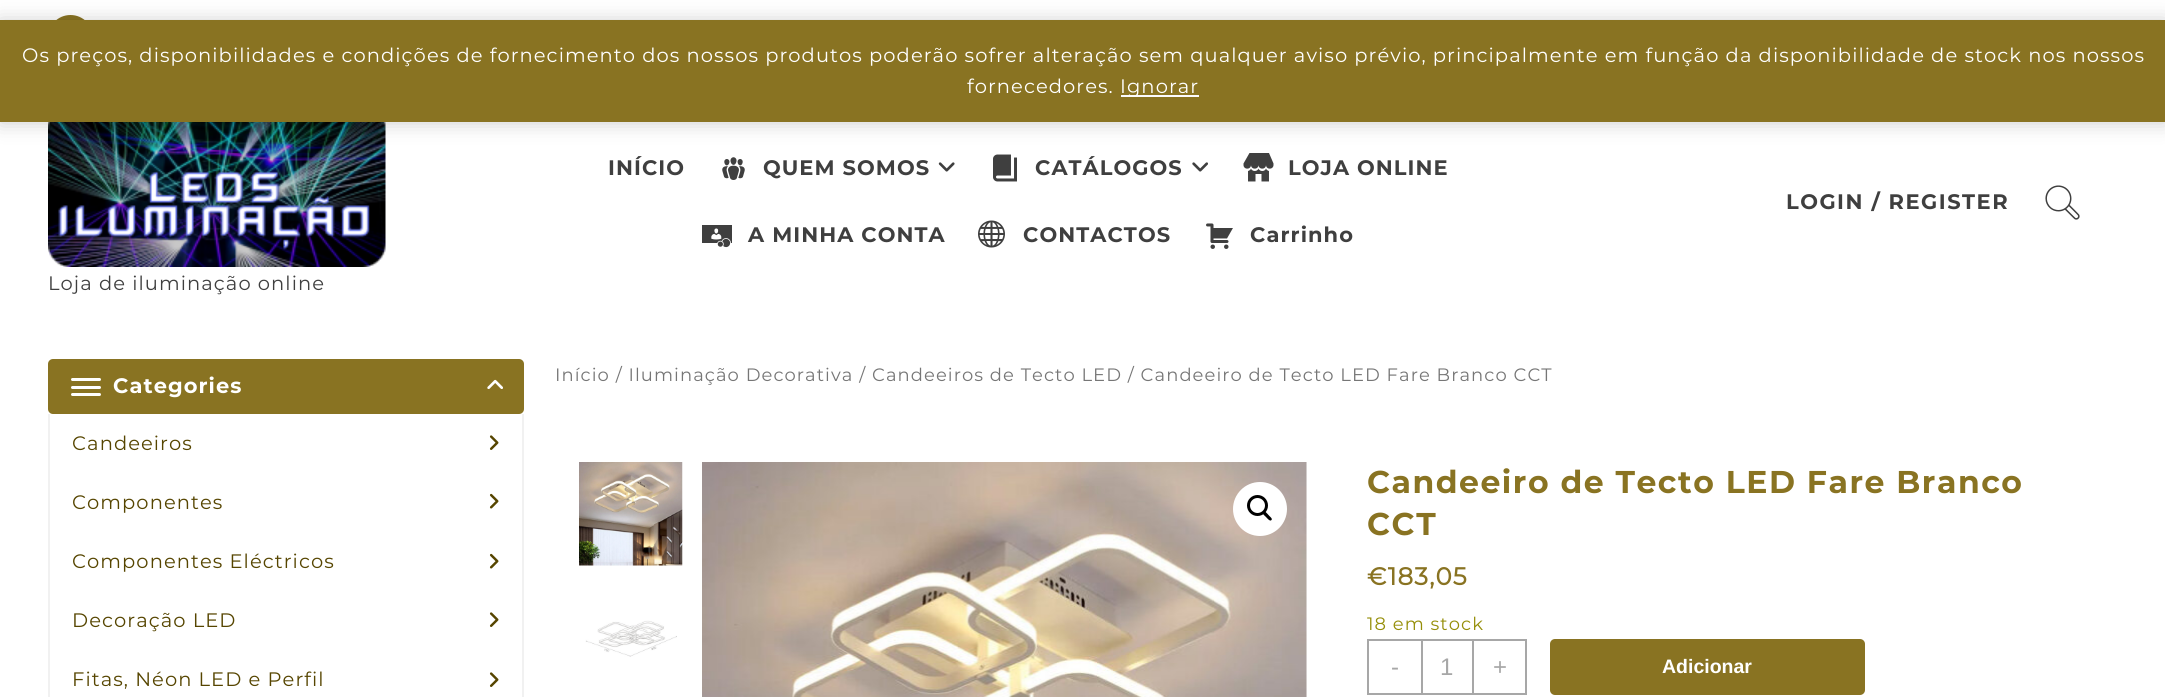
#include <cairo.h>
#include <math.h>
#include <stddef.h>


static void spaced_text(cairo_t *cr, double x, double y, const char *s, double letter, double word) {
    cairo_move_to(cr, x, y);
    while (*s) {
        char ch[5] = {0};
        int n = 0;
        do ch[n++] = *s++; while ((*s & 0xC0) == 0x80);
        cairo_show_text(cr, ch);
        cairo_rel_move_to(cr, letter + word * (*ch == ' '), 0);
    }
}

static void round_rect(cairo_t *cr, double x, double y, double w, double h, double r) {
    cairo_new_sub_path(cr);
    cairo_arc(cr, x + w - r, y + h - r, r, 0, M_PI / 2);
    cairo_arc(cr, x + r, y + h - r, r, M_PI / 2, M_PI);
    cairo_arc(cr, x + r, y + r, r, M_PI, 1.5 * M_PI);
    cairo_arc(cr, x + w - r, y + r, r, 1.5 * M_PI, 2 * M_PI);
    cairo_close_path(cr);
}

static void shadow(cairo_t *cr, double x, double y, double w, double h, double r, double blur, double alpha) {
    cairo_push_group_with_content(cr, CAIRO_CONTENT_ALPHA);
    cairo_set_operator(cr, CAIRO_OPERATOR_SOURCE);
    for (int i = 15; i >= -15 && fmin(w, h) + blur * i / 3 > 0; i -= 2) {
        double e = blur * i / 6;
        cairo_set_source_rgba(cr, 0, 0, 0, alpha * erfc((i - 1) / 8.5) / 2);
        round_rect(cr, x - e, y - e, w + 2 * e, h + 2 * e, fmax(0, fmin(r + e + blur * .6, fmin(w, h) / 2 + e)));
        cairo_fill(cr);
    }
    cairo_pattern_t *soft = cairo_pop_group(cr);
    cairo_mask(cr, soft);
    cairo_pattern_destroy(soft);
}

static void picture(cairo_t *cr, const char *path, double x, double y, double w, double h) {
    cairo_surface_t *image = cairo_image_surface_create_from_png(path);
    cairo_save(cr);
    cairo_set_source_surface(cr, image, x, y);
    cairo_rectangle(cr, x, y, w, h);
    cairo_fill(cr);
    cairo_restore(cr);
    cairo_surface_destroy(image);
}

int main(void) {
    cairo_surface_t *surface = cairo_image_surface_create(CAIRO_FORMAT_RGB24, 2165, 697);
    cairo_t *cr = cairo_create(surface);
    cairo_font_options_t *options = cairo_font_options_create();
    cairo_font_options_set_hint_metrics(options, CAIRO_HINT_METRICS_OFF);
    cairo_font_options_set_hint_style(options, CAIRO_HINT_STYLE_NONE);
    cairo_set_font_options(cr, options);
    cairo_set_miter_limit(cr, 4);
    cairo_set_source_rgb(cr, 1, 1, 1);
    cairo_paint(cr);
    cairo_set_source_rgb(cr, 0.537, 0.451, 0.133);
    cairo_arc(cr, 70.5, 37.5, 22.5, 0, 2 * M_PI);
    cairo_fill(cr);
    picture(cr, "img5.png", 1243, 153, 31, 29);
    picture(cr, "img10.png", 48, 122, 338, 145);
    cairo_set_source_rgb(cr, 0, 0, 0);
    shadow(cr, 0, 21, 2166, 102, 0, 10, 0.2);
    cairo_set_source_rgb(cr, 0.537, 0.451, 0.133);
    cairo_rectangle(cr, 0, 20, 2165, 102);
    cairo_fill(cr);
    cairo_select_font_face(cr, "Montserrat", CAIRO_FONT_SLANT_NORMAL, CAIRO_FONT_WEIGHT_NORMAL);
    cairo_set_font_size(cr, 19.5);
    cairo_set_source_rgb(cr, 1, 1, 1);
    spaced_text(cr, 22, 62, "Os preços, disponibilidades e condições de fornecimento dos nossos produtos poderão sofrer alteração sem qualquer aviso prévio, principalmente em função da disponibilidade de stock nos nossos", 1.05, 0);
    spaced_text(cr, 967, 93, "fornecedores.", 1.05, 0);
    cairo_set_source_rgb(cr, 0.988, 0.984, 0.996);
    cairo_rectangle(cr, 1121, 95, 78, 2);
    cairo_fill(cr);
    cairo_set_source_rgb(cr, 1, 1, 1);
    spaced_text(cr, 1120, 93, "Ignorar", 1.05, 0);
    cairo_select_font_face(cr, "Montserrat", CAIRO_FONT_SLANT_NORMAL, CAIRO_FONT_WEIGHT_BOLD);
    cairo_set_font_size(cr, 21);
    cairo_set_source_rgb(cr, 0.247, 0.247, 0.247);
    spaced_text(cr, 608, 175, "INÍCIO", 1.05, 0);
    picture(cr, "img1.png", 722, 157, 23, 23);
    spaced_text(cr, 763, 175, "QUEM SOMOS", 1.05, 0);
    picture(cr, "img2.png", 938, 162, 17, 10);
    picture(cr, "img3.png", 993, 154, 24, 28);
    spaced_text(cr, 1035, 175, "CATÁLOGOS", 1.05, 0);
    picture(cr, "img4.png", 1192, 162, 16, 10);
    spaced_text(cr, 1288, 175, "LOJA ONLINE", 1.05, 0);
    picture(cr, "img6.png", 702, 225, 30, 23);
    spaced_text(cr, 748, 242, "A MINHA CONTA", 1.05, 0);
    picture(cr, "img7.png", 978, 220, 27, 28);
    spaced_text(cr, 1023, 242, "CONTACTOS", 1.05, 0);
    picture(cr, "img8.png", 1206, 223, 27, 26);
    spaced_text(cr, 1250, 242, "Carrinho", 1.05, 0);
    spaced_text(cr, 1786, 209, "LOGIN / REGISTER", 1.5, 0);
    picture(cr, "img9.png", 2045, 185, 35, 35);
    cairo_select_font_face(cr, "Montserrat", CAIRO_FONT_SLANT_NORMAL, CAIRO_FONT_WEIGHT_NORMAL);
    cairo_set_font_size(cr, 19.5);
    spaced_text(cr, 48, 290, "Loja de iluminação online", 1.05, 0);
    cairo_set_source_rgb(cr, 0.537, 0.451, 0.133);
    round_rect(cr, 48, 359, 476, 55, 5);
    cairo_fill(cr);
    cairo_set_source_rgb(cr, 1, 1, 1);
    round_rect(cr, 71, 378, 30, 3, 1.5);
    cairo_fill(cr);
    round_rect(cr, 71, 386, 30, 3, 1.5);
    cairo_fill(cr);
    round_rect(cr, 71, 393, 30, 3, 1.5);
    cairo_fill(cr);
    cairo_select_font_face(cr, "Montserrat", CAIRO_FONT_SLANT_NORMAL, CAIRO_FONT_WEIGHT_BOLD);
    cairo_set_font_size(cr, 21);
    spaced_text(cr, 113, 393, "Categories", 1.05, 0);
    picture(cr, "img11.png", 487, 379, 16, 10);
    cairo_set_source_rgb(cr, 0.945, 0.945, 0.945);
    cairo_rectangle(cr, 522, 414, 2, 283);
    cairo_fill(cr);
    cairo_rectangle(cr, 48, 414, 2, 283);
    cairo_fill(cr);
    cairo_select_font_face(cr, "Montserrat", CAIRO_FONT_SLANT_NORMAL, CAIRO_FONT_WEIGHT_NORMAL);
    cairo_set_font_size(cr, 19.5);
    cairo_set_source_rgb(cr, 0.337, 0.271, 0);
    spaced_text(cr, 72, 450, "Candeeiros", 1.05, 0);
    picture(cr, "img12.png", 489, 435, 10, 15);
    spaced_text(cr, 72, 509, "Componentes", 1.05, 0);
    picture(cr, "img13.png", 489, 493, 10, 16);
    spaced_text(cr, 72, 568, "Componentes Eléctricos", 1.05, 0);
    picture(cr, "img13.png", 489, 553, 10, 16);
    spaced_text(cr, 72, 627, "Decoração LED", 1.05, 0);
    picture(cr, "img12.png", 489, 612, 10, 15);
    spaced_text(cr, 72, 686, "Fitas, Néon LED e Perfil", 1.05, 0);
    picture(cr, "img12.png", 489, 672, 10, 15);
    cairo_set_font_size(cr, 17.95);
    cairo_set_source_rgb(cr, 0.463, 0.463, 0.463);
    spaced_text(cr, 555, 381, "Início / Iluminação Decorativa / Candeeiros de Tecto LED / Candeeiro de Tecto LED Fare Branco CCT", 1.05, 0);
    picture(cr, "img14.png", 579, 462, 104, 104);
    picture(cr, "img15.png", 585, 620, 92, 37);
    picture(cr, "img16.png", 702, 462, 605, 235);
    cairo_set_source_rgb(cr, 1, 1, 1);
    cairo_arc(cr, 1260, 509, 27, 0, 2 * M_PI);
    cairo_fill(cr);
    cairo_arc(cr, 1257.5, 505.5, 9, 0, 2 * M_PI);
    cairo_set_source_rgb(cr, 0, 0, 0);
    cairo_set_line_width(cr, 3);
    cairo_stroke(cr);
    cairo_new_path(cr);
    cairo_move_to(cr, 1263, 511.5);
    cairo_curve_to(cr, 1264.5, 510, 1267.5, 514, 1268.5, 515);
    cairo_curve_to(cr, 1269, 516, 1273, 518.5, 1271.5, 520);
    cairo_curve_to(cr, 1270, 522, 1267, 518, 1266, 517);
    cairo_curve_to(cr, 1265, 516, 1261.5, 513.5, 1263, 511.5);
    cairo_close_path(cr);
    cairo_fill(cr);
    cairo_select_font_face(cr, "Montserrat", CAIRO_FONT_SLANT_NORMAL, CAIRO_FONT_WEIGHT_BOLD);
    cairo_set_font_size(cr, 31.5);
    cairo_set_source_rgb(cr, 0.537, 0.451, 0.133);
    spaced_text(cr, 1367, 493, "Candeeiro de Tecto LED Fare Branco", 1.5, 0);
    spaced_text(cr, 1367, 535, "CCT", 1.5, 0);
    cairo_select_font_face(cr, "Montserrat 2", CAIRO_FONT_SLANT_NORMAL, CAIRO_FONT_WEIGHT_BOLD);
    cairo_set_font_size(cr, 24.5);
    spaced_text(cr, 1367, 585, "€183,05", 1.05, 0);
    cairo_select_font_face(cr, "Montserrat", CAIRO_FONT_SLANT_NORMAL, CAIRO_FONT_WEIGHT_NORMAL);
    cairo_set_font_size(cr, 17.95);
    cairo_set_source_rgb(cr, 0.584, 0.557, 0.035);
    spaced_text(cr, 1367, 630, "18 em stock", 1.05, 0);
    cairo_rectangle(cr, 1368, 640, 158, 54);
    cairo_set_source_rgb(cr, 0.655, 0.655, 0.655);
    cairo_set_line_width(cr, 2);
    cairo_stroke(cr);
    cairo_select_font_face(cr, "Liberation Sans", CAIRO_FONT_SLANT_NORMAL, CAIRO_FONT_WEIGHT_NORMAL);
    cairo_set_font_size(cr, 24);
    cairo_move_to(cr, 1391, 675);
    cairo_show_text(cr, "-");
    cairo_rectangle(cr, 1472, 641, 2, 52);
    cairo_fill(cr);
    cairo_rectangle(cr, 1421, 641, 2, 52);
    cairo_fill(cr);
    cairo_move_to(cr, 1440, 675);
    cairo_show_text(cr, "1");
    cairo_move_to(cr, 1493, 675);
    cairo_show_text(cr, "+");
    cairo_set_source_rgb(cr, 0.537, 0.451, 0.133);
    round_rect(cr, 1550, 639, 315, 56, 5);
    cairo_fill(cr);
    cairo_select_font_face(cr, "Liberation Sans", CAIRO_FONT_SLANT_NORMAL, CAIRO_FONT_WEIGHT_BOLD);
    cairo_set_font_size(cr, 19.5);
    cairo_set_source_rgb(cr, 1, 1, 1);
    cairo_move_to(cr, 1662, 673);
    cairo_show_text(cr, "Adicionar");
    cairo_surface_write_to_png(surface, "page.png");
    cairo_font_options_destroy(options);
    cairo_destroy(cr);
    cairo_surface_destroy(surface);
    return 0;
}
